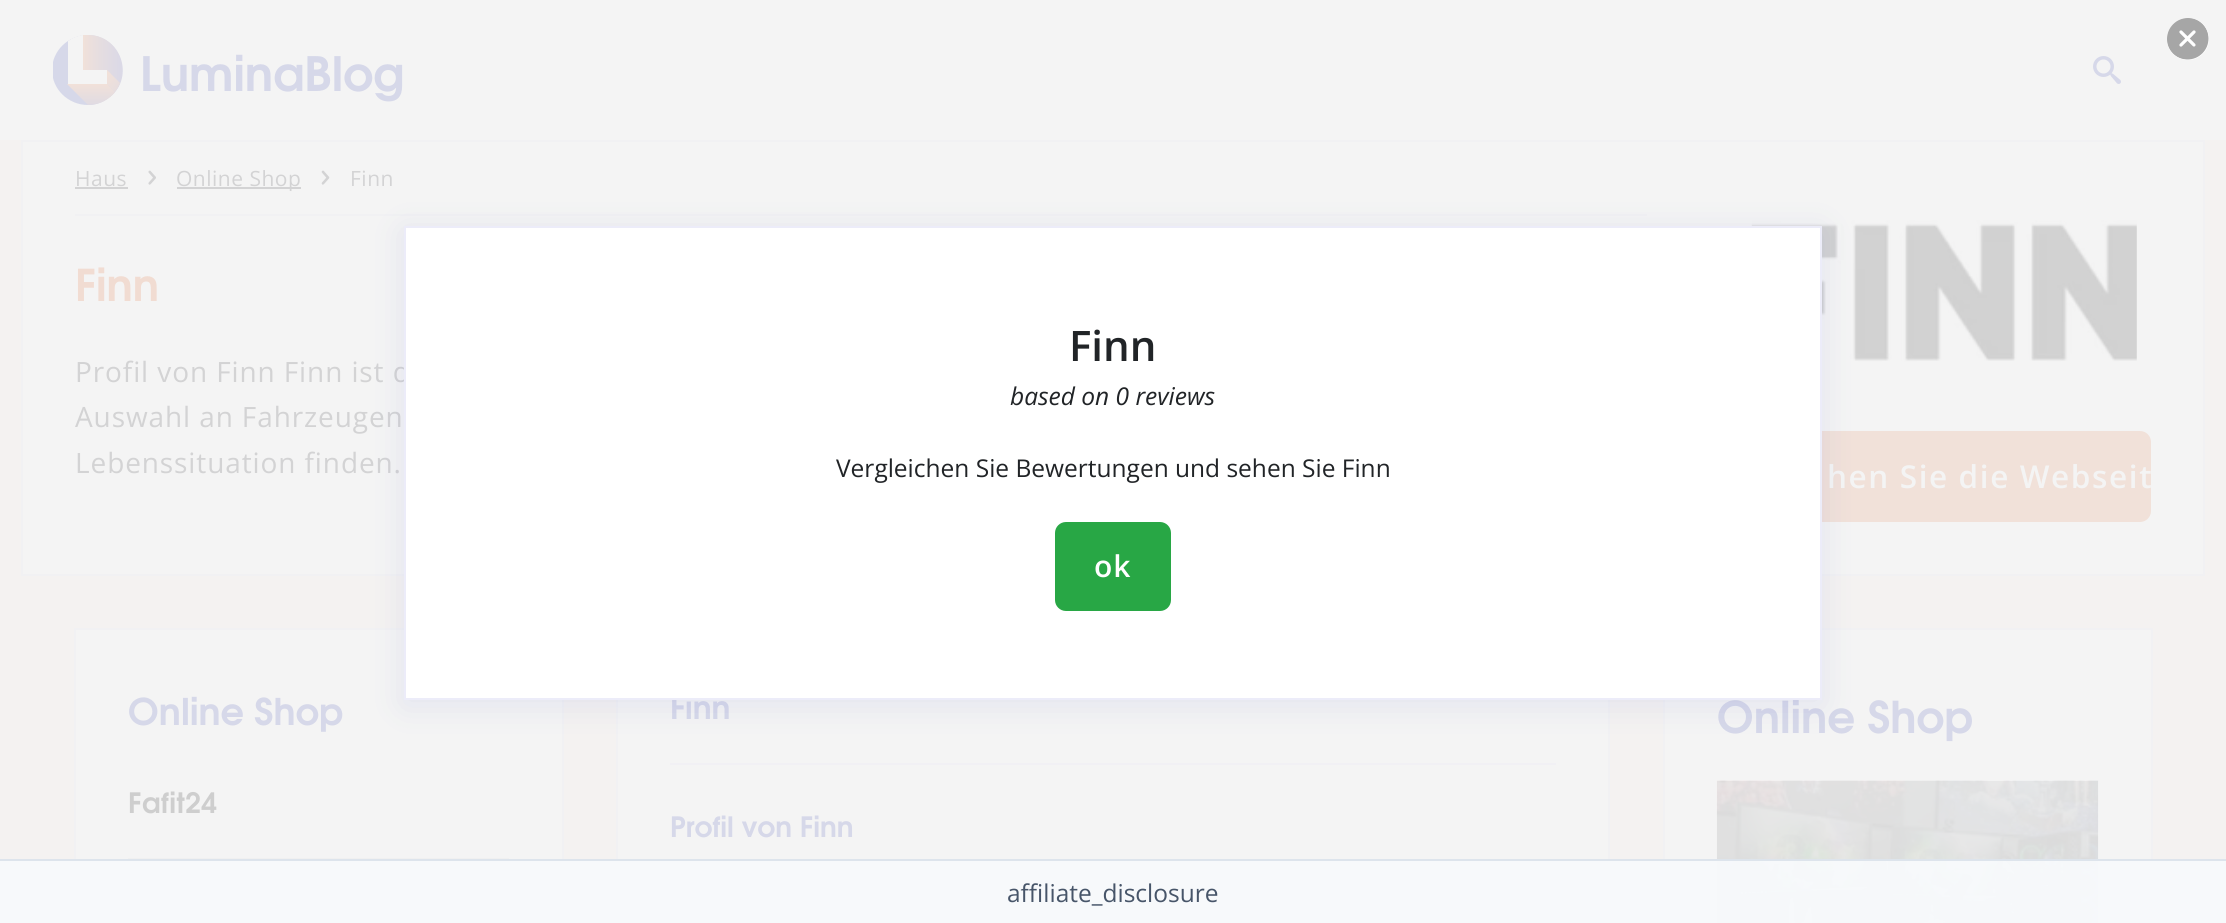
#include <cairo.h>
#include <math.h>
#include <stddef.h>


static void spaced_text(cairo_t *cr, double x, double y, const char *s, double letter, double word) {
    cairo_move_to(cr, x, y);
    while (*s) {
        char ch[5] = {0};
        int n = 0;
        do ch[n++] = *s++; while ((*s & 0xC0) == 0x80);
        cairo_show_text(cr, ch);
        cairo_rel_move_to(cr, letter + word * (*ch == ' '), 0);
    }
}

static void round_rect(cairo_t *cr, double x, double y, double w, double h, double r) {
    cairo_new_sub_path(cr);
    cairo_arc(cr, x + w - r, y + h - r, r, 0, M_PI / 2);
    cairo_arc(cr, x + r, y + h - r, r, M_PI / 2, M_PI);
    cairo_arc(cr, x + r, y + r, r, M_PI, 1.5 * M_PI);
    cairo_arc(cr, x + w - r, y + r, r, 1.5 * M_PI, 2 * M_PI);
    cairo_close_path(cr);
}

static void shadow(cairo_t *cr, double x, double y, double w, double h, double r, double blur, double alpha) {
    cairo_push_group_with_content(cr, CAIRO_CONTENT_ALPHA);
    cairo_set_operator(cr, CAIRO_OPERATOR_SOURCE);
    for (int i = 15; i >= -15 && fmin(w, h) + blur * i / 3 > 0; i -= 2) {
        double e = blur * i / 6;
        cairo_set_source_rgba(cr, 0, 0, 0, alpha * erfc((i - 1) / 8.5) / 2);
        round_rect(cr, x - e, y - e, w + 2 * e, h + 2 * e, fmax(0, fmin(r + e + blur * .6, fmin(w, h) / 2 + e)));
        cairo_fill(cr);
    }
    cairo_pattern_t *soft = cairo_pop_group(cr);
    cairo_mask(cr, soft);
    cairo_pattern_destroy(soft);
}

static void picture(cairo_t *cr, const char *path, double x, double y, double w, double h) {
    cairo_surface_t *image = cairo_image_surface_create_from_png(path);
    cairo_save(cr);
    cairo_set_source_surface(cr, image, x, y);
    cairo_rectangle(cr, x, y, w, h);
    cairo_fill(cr);
    cairo_restore(cr);
    cairo_surface_destroy(image);
}

int main(void) {
    cairo_surface_t *surface = cairo_image_surface_create(CAIRO_FORMAT_RGB24, 2226, 923);
    cairo_t *cr = cairo_create(surface);
    cairo_font_options_t *options = cairo_font_options_create();
    cairo_font_options_set_hint_metrics(options, CAIRO_HINT_METRICS_OFF);
    cairo_font_options_set_hint_style(options, CAIRO_HINT_STYLE_NONE);
    cairo_set_font_options(cr, options);
    cairo_set_miter_limit(cr, 4);
    cairo_pattern_t *gradient;
    cairo_set_source_rgb(cr, 0.957, 0.949, 0.945);
    cairo_paint(cr);
    cairo_set_source_rgb(cr, 0.957, 0.957, 0.957);
    cairo_rectangle(cr, 0, 0, 2226, 140);
    cairo_fill(cr);
    cairo_save(cr);
    cairo_rectangle(cr, 53, 35, 70, 70);
    cairo_clip(cr);
    cairo_set_source_rgb(cr, 0.839, 0.847, 0.914);
    cairo_new_path(cr);
    cairo_move_to(cr, 88, 35);
    cairo_curve_to(cr, 68, 35, 52, 51, 52, 70);
    cairo_curve_to(cr, 52, 89, 68, 105, 88, 105);
    cairo_curve_to(cr, 107, 105, 122, 89, 122, 70);
    cairo_curve_to(cr, 122, 51, 107, 35, 88, 35);
    cairo_close_path(cr);
    cairo_fill(cr);
    cairo_restore(cr);
    gradient = cairo_pattern_create_linear(83, 70, 150, 70);
    cairo_pattern_add_color_stop_rgba(gradient, 0, 0.945, 0.882, 0.851, 1);
    cairo_pattern_add_color_stop_rgba(gradient, 0.1, 0.925, 0.875, 0.863, 1);
    cairo_pattern_add_color_stop_rgba(gradient, 0.25, 0.898, 0.867, 0.878, 1);
    cairo_pattern_add_color_stop_rgba(gradient, 0.4, 0.878, 0.859, 0.89, 1);
    cairo_pattern_add_color_stop_rgba(gradient, 0.55, 0.859, 0.851, 0.902, 1);
    cairo_pattern_add_color_stop_rgba(gradient, 0.7, 0.847, 0.847, 0.91, 1);
    cairo_pattern_add_color_stop_rgba(gradient, 0.85, 0.839, 0.847, 0.914, 1);
    cairo_pattern_add_color_stop_rgba(gradient, 0.99, 0.839, 0.847, 0.914, 1);
    cairo_set_source(cr, gradient);
    cairo_pattern_destroy(gradient);
    cairo_new_path(cr);
    cairo_move_to(cr, 88, 35);
    cairo_curve_to(cr, 121, 35, 135, 77, 110, 97);
    cairo_line_to(cr, 83, 70);
    cairo_line_to(cr, 83, 35);
    cairo_close_path(cr);
    cairo_fill(cr);
    gradient = cairo_pattern_create_linear(105, 84, 105, 160);
    cairo_pattern_add_color_stop_rgba(gradient, 0, 0.945, 0.882, 0.851, 1);
    cairo_pattern_add_color_stop_rgba(gradient, 0.22, 0.89, 0.863, 0.882, 1);
    cairo_pattern_add_color_stop_rgba(gradient, 0.39, 0.851, 0.851, 0.906, 1);
    cairo_pattern_add_color_stop_rgba(gradient, 0.47, 0.839, 0.847, 0.914, 1);
    cairo_set_source(cr, gradient);
    cairo_pattern_destroy(gradient);
    cairo_new_path(cr);
    cairo_move_to(cr, 107, 84);
    cairo_line_to(cr, 115, 92);
    cairo_curve_to(cr, 109, 100, 99, 105, 88, 105);
    cairo_line_to(cr, 67, 84);
    cairo_close_path(cr);
    cairo_fill(cr);
    gradient = cairo_pattern_create_linear(104, 70, 145, 100);
    cairo_pattern_add_color_stop_rgba(gradient, 0, 0.945, 0.882, 0.851, 1);
    cairo_pattern_add_color_stop_rgba(gradient, 0.11, 0.945, 0.882, 0.851, 1);
    cairo_pattern_add_color_stop_rgba(gradient, 1, 0.839, 0.847, 0.914, 1);
    cairo_set_source(cr, gradient);
    cairo_pattern_destroy(gradient);
    cairo_new_path(cr);
    cairo_move_to(cr, 107, 84);
    cairo_line_to(cr, 107, 70);
    cairo_line_to(cr, 120, 83);
    cairo_curve_to(cr, 119, 86, 117, 89, 115, 92);
    cairo_close_path(cr);
    cairo_fill(cr);
    cairo_set_source_rgb(cr, 0.957, 0.957, 0.957);
    cairo_new_path(cr);
    cairo_move_to(cr, 107, 84);
    cairo_line_to(cr, 68, 84);
    cairo_line_to(cr, 68, 41);
    cairo_curve_to(cr, 72, 38, 77, 36, 83, 35);
    cairo_line_to(cr, 83, 70);
    cairo_line_to(cr, 107, 70);
    cairo_close_path(cr);
    cairo_fill(cr);
    cairo_select_font_face(cr, "TeX Gyre Adventor", CAIRO_FONT_SLANT_NORMAL, CAIRO_FONT_WEIGHT_BOLD);
    cairo_set_font_size(cr, 47.25);
    cairo_set_source_rgb(cr, 0.839, 0.847, 0.914);
    cairo_move_to(cr, 140, 91);
    cairo_show_text(cr, "LuminaBlog");
    picture(cr, "img1.png", 2093, 56, 28, 28);
    cairo_set_source_rgb(cr, 0.957, 0.957, 0.957);
    cairo_rectangle(cr, 22, 141, 2182, 434);
    cairo_fill_preserve(cr);
    cairo_set_source_rgb(cr, 0.945, 0.945, 0.953);
    cairo_stroke(cr);
    cairo_select_font_face(cr, "Open Sans", CAIRO_FONT_SLANT_NORMAL, CAIRO_FONT_WEIGHT_NORMAL);
    cairo_set_font_size(cr, 21);
    cairo_set_source_rgb(cr, 0.827, 0.827, 0.831);
    spaced_text(cr, 75, 186, "Haus", 0.5, 0);
    cairo_rectangle(cr, 75, 187, 53, 2);
    cairo_fill(cr);
    picture(cr, "img2.png", 148, 170, 8, 15);
    cairo_rectangle(cr, 177, 187, 124, 2);
    cairo_fill(cr);
    spaced_text(cr, 176, 186, "Online Shop", 0.5, 0);
    picture(cr, "img3.png", 321, 170, 9, 15);
    spaced_text(cr, 350, 186, "Finn", 0.5, 0);
    cairo_set_source_rgb(cr, 0.945, 0.945, 0.953);
    cairo_rectangle(cr, 75, 214, 1572, 2);
    cairo_fill(cr);
    cairo_select_font_face(cr, "TeX Gyre Adventor", CAIRO_FONT_SLANT_NORMAL, CAIRO_FONT_WEIGHT_BOLD);
    cairo_set_font_size(cr, 43.75);
    cairo_set_source_rgb(cr, 0.945, 0.863, 0.824);
    cairo_move_to(cr, 75, 301);
    cairo_show_text(cr, "Finn");
    cairo_select_font_face(cr, "Open Sans", CAIRO_FONT_SLANT_NORMAL, CAIRO_FONT_WEIGHT_NORMAL);
    cairo_set_font_size(cr, 28);
    cairo_set_source_rgb(cr, 0.827, 0.827, 0.831);
    spaced_text(cr, 75, 382, "Profil von Finn Finn ist d", 0.9, 0);
    spaced_text(cr, 75, 427, "Auswahl an Fahrzeugen", 0.9, 0);
    spaced_text(cr, 75, 473, "Lebenssituation finden.", 0.9, 0);
    picture(cr, "img4.png", 1751, 220, 386, 142);
    cairo_set_source_rgb(cr, 0.945, 0.882, 0.851);
    round_rect(cr, 1752, 431, 399, 91, 11);
    cairo_fill(cr);
    cairo_select_font_face(cr, "Open Sans SemiBold", CAIRO_FONT_SLANT_NORMAL, CAIRO_FONT_WEIGHT_NORMAL);
    cairo_set_font_size(cr, 31.5);
    cairo_set_source_rgb(cr, 0.957, 0.957, 0.957);
    spaced_text(cr, 1827, 488, "hen Sie die Webseit", 1.6, 0);
    cairo_rectangle(cr, 75, 629, 488, 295);
    cairo_fill_preserve(cr);
    cairo_set_source_rgb(cr, 0.945, 0.945, 0.953);
    cairo_stroke(cr);
    cairo_select_font_face(cr, "TeX Gyre Adventor", CAIRO_FONT_SLANT_NORMAL, CAIRO_FONT_WEIGHT_BOLD);
    cairo_set_font_size(cr, 36.75);
    cairo_set_source_rgb(cr, 0.839, 0.847, 0.914);
    cairo_move_to(cr, 128, 725);
    cairo_show_text(cr, "Online Shop");
    cairo_set_source_rgb(cr, 0.941, 0.941, 0.941);
    cairo_rectangle(cr, 128, 858, 381, 1);
    cairo_fill(cr);
    cairo_set_font_size(cr, 28);
    cairo_set_source_rgb(cr, 0.808, 0.808, 0.808);
    spaced_text(cr, 128, 813, "Fafit24", 0.5, 0);
    cairo_set_source_rgb(cr, 0.957, 0.957, 0.957);
    cairo_rectangle(cr, 618, 700, 990, 223);
    cairo_fill(cr);
    cairo_rectangle(cr, 617, 629, 992, 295);
    cairo_set_source_rgb(cr, 0.945, 0.945, 0.953);
    cairo_stroke(cr);
    cairo_set_source_rgb(cr, 0.945, 0.941, 0.957);
    cairo_rectangle(cr, 670, 763, 886, 2);
    cairo_fill(cr);
    cairo_set_font_size(cr, 31.5);
    cairo_set_source_rgb(cr, 0.839, 0.847, 0.914);
    cairo_move_to(cr, 670, 719);
    cairo_show_text(cr, "Finn");
    cairo_set_font_size(cr, 28);
    cairo_move_to(cr, 670, 837);
    cairo_show_text(cr, "Profil von Finn");
    cairo_set_source_rgb(cr, 0.957, 0.957, 0.957);
    cairo_rectangle(cr, 1664, 629, 488, 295);
    cairo_fill_preserve(cr);
    cairo_set_source_rgb(cr, 0.945, 0.945, 0.953);
    cairo_stroke(cr);
    cairo_set_font_size(cr, 43.75);
    cairo_set_source_rgb(cr, 0.839, 0.847, 0.914);
    cairo_move_to(cr, 1717, 733);
    cairo_show_text(cr, "Online Shop");
    picture(cr, "img5.png", 1716, 780, 383, 143);
    cairo_set_source_rgb(cr, 1, 1, 1);
    cairo_arc(cr, 2188, 39, 21, 0, 2 * M_PI);
    cairo_fill(cr);
    picture(cr, "img6.png", 2167, 18, 42, 42);
    cairo_set_source_rgb(cr, 0.208, 0.259, 0.718);
    shadow(cr, 404, 231, 1418, 474, 0, 16, 0.1);
    cairo_set_source_rgb(cr, 1, 1, 1);
    cairo_rectangle(cr, 405, 227, 1416, 472);
    cairo_fill_preserve(cr);
    cairo_set_source_rgb(cr, 0.922, 0.925, 0.973);
    cairo_stroke(cr);
    cairo_select_font_face(cr, "Open Sans SemiBold", CAIRO_FONT_SLANT_NORMAL, CAIRO_FONT_WEIGHT_NORMAL);
    cairo_set_font_size(cr, 42);
    cairo_set_source_rgb(cr, 0.129, 0.141, 0.153);
    cairo_move_to(cr, 1069, 361);
    cairo_show_text(cr, "Finn");
    cairo_select_font_face(cr, "Open Sans", CAIRO_FONT_SLANT_ITALIC, CAIRO_FONT_WEIGHT_NORMAL);
    cairo_set_font_size(cr, 24.5);
    cairo_move_to(cr, 1010, 405);
    cairo_show_text(cr, "based on 0 reviews");
    cairo_select_font_face(cr, "Open Sans", CAIRO_FONT_SLANT_NORMAL, CAIRO_FONT_WEIGHT_NORMAL);
    cairo_move_to(cr, 836, 477);
    cairo_show_text(cr, "Vergleichen Sie Bewertungen und sehen Sie Finn");
    cairo_set_source_rgb(cr, 0.157, 0.655, 0.271);
    round_rect(cr, 1055, 522, 116, 89, 11);
    cairo_fill(cr);
    cairo_select_font_face(cr, "Open Sans SemiBold", CAIRO_FONT_SLANT_NORMAL, CAIRO_FONT_WEIGHT_NORMAL);
    cairo_set_font_size(cr, 30);
    cairo_set_source_rgb(cr, 1, 1, 1);
    spaced_text(cr, 1094, 577, "ok", 1, 0);
    cairo_set_source_rgba(cr, 0.973, 0.98, 0.988, 0.95);
    cairo_rectangle(cr, 0, 861, 2226, 62);
    cairo_fill(cr);
    cairo_set_source_rgb(cr, 0.867, 0.894, 0.925);
    cairo_rectangle(cr, 0, 859, 2226, 2);
    cairo_fill(cr);
    cairo_select_font_face(cr, "Open Sans", CAIRO_FONT_SLANT_NORMAL, CAIRO_FONT_WEIGHT_NORMAL);
    cairo_set_font_size(cr, 24.5);
    cairo_set_source_rgb(cr, 0.278, 0.333, 0.412);
    cairo_move_to(cr, 1007, 902);
    cairo_show_text(cr, "affiliate_disclosure");
    cairo_surface_write_to_png(surface, "page.png");
    cairo_font_options_destroy(options);
    cairo_destroy(cr);
    cairo_surface_destroy(surface);
    return 0;
}
